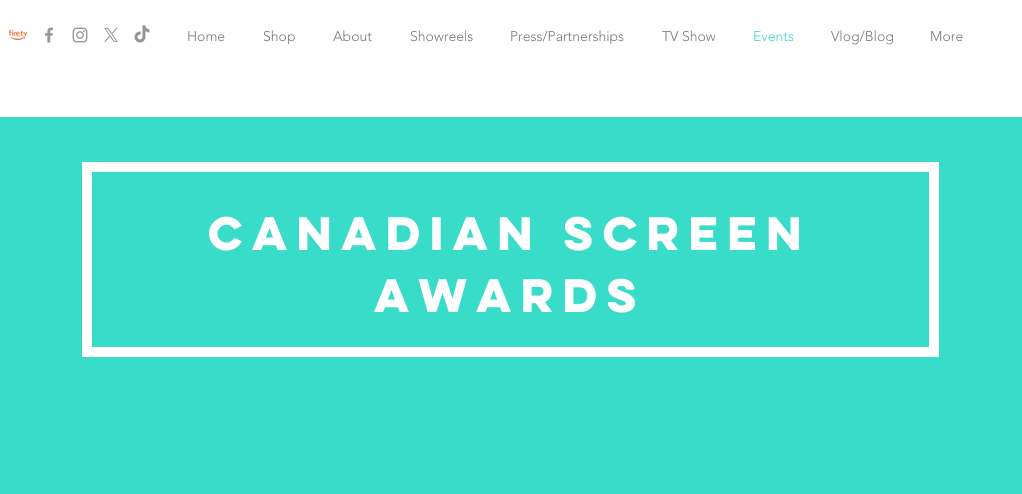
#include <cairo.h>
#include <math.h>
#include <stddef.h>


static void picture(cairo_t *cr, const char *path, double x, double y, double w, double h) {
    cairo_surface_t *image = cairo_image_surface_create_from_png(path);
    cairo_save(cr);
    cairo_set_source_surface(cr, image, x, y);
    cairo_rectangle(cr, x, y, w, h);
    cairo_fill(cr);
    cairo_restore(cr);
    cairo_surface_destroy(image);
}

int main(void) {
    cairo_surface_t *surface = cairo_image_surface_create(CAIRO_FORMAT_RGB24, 1022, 494);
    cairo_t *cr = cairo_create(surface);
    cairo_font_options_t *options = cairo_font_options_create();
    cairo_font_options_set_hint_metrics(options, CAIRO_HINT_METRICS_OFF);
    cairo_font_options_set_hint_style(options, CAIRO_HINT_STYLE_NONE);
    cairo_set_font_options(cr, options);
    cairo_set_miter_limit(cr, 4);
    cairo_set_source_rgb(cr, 0.22, 0.863, 0.784);
    cairo_paint(cr);
    cairo_set_source_rgb(cr, 1, 1, 1);
    cairo_rectangle(cr, 0, 0, 1022, 117);
    cairo_fill(cr);
    picture(cr, "img1.png", 9, 29, 19, 11);
    picture(cr, "img2.png", 45, 27, 8, 16);
    picture(cr, "img3.png", 72, 27, 16, 16);
    picture(cr, "img4.png", 104, 27, 14, 16);
    picture(cr, "img5.png", 134, 25, 16, 18);
    cairo_select_font_face(cr, "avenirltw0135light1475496 Light", CAIRO_FONT_SLANT_NORMAL, CAIRO_FONT_WEIGHT_NORMAL);
    cairo_set_font_size(cr, 14);
    cairo_set_source_rgb(cr, 0.471, 0.471, 0.467);
    cairo_move_to(cr, 187, 41);
    cairo_show_text(cr, "Home");
    cairo_move_to(cr, 263, 41);
    cairo_show_text(cr, "Shop");
    cairo_move_to(cr, 333, 41);
    cairo_show_text(cr, "About");
    cairo_move_to(cr, 410, 41);
    cairo_show_text(cr, "Showreels");
    cairo_move_to(cr, 510, 41);
    cairo_show_text(cr, "Press/Partnerships");
    cairo_move_to(cr, 662, 41);
    cairo_show_text(cr, "TV Show");
    cairo_set_source_rgb(cr, 0.22, 0.863, 0.784);
    cairo_move_to(cr, 753, 41);
    cairo_show_text(cr, "Events");
    cairo_set_source_rgb(cr, 0.471, 0.471, 0.467);
    cairo_move_to(cr, 831, 41);
    cairo_show_text(cr, "Vlog/Blog");
    cairo_move_to(cr, 930, 41);
    cairo_show_text(cr, "More");
    cairo_rectangle(cr, 87, 167, 847, 185);
    cairo_set_source_rgb(cr, 1, 1, 1);
    cairo_set_line_width(cr, 10);
    cairo_stroke(cr);
    cairo_select_font_face(cr, "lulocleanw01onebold", CAIRO_FONT_SLANT_NORMAL, CAIRO_FONT_WEIGHT_BOLD);
    cairo_set_font_size(cr, 42);
    cairo_move_to(cr, 208, 250);
    cairo_show_text(cr, "CANADIAN SCREEN");
    cairo_move_to(cr, 374, 312);
    cairo_show_text(cr, "AWARDS");
    cairo_surface_write_to_png(surface, "page.png");
    cairo_font_options_destroy(options);
    cairo_destroy(cr);
    cairo_surface_destroy(surface);
    return 0;
}
